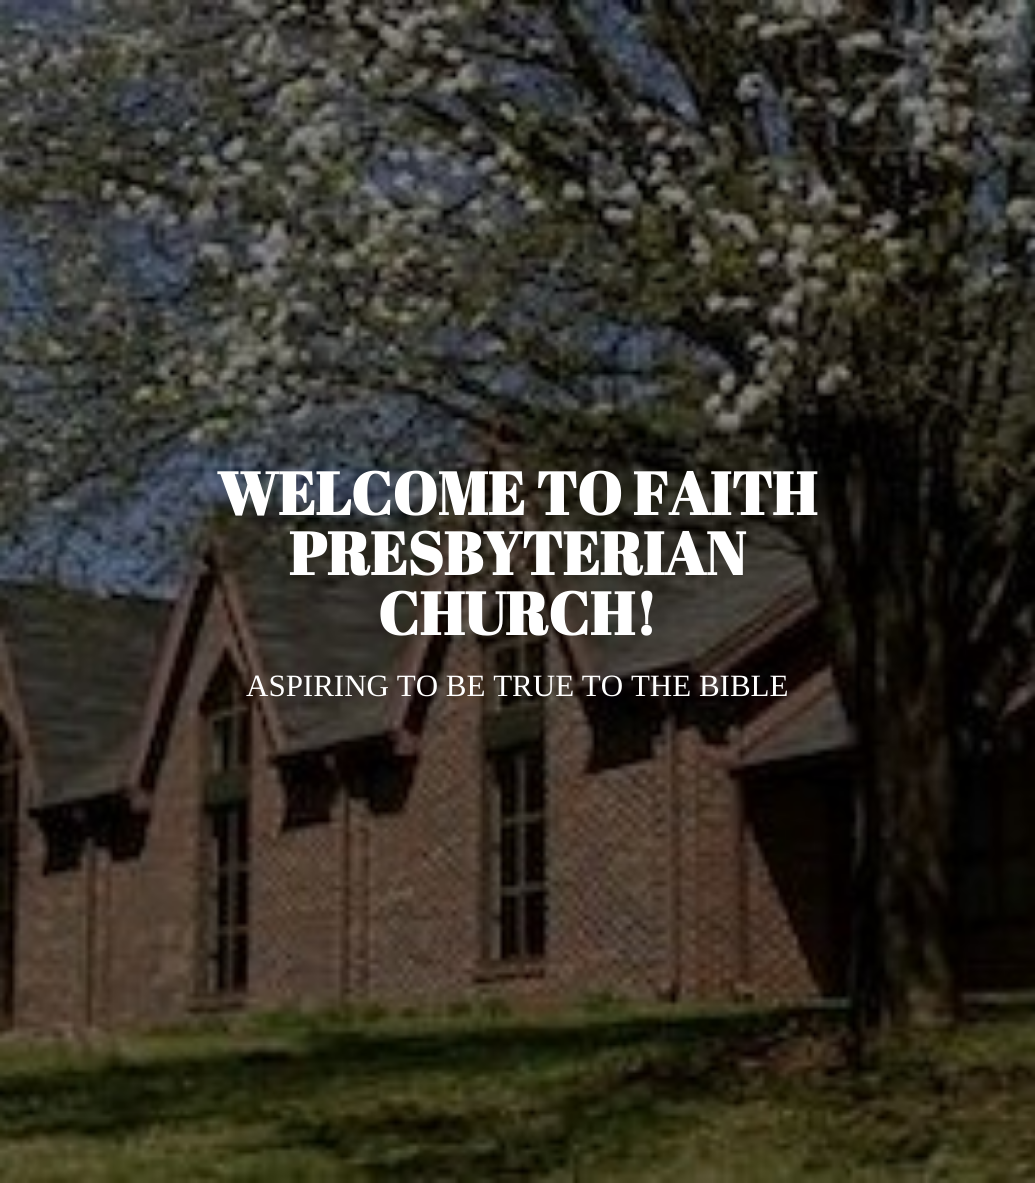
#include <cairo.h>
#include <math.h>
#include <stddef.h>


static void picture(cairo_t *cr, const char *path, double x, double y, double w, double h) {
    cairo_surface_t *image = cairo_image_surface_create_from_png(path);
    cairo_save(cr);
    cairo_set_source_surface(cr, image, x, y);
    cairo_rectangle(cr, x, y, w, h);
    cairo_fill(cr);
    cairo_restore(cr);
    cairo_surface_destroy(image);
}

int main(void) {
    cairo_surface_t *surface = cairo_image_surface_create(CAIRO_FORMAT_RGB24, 1035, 1183);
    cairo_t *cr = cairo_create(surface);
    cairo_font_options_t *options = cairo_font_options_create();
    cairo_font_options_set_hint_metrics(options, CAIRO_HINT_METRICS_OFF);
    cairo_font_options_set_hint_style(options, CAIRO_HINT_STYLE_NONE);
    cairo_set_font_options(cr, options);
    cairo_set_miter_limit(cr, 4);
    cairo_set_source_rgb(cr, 1, 1, 1);
    cairo_paint(cr);
    picture(cr, "img1.png", 0, 0, 1035, 1183);
    cairo_select_font_face(cr, "Abril Fatface", CAIRO_FONT_SLANT_NORMAL, CAIRO_FONT_WEIGHT_BOLD);
    cairo_set_font_size(cr, 60);
    cairo_set_source_rgb(cr, 1, 1, 1);
    cairo_move_to(cr, 217, 515);
    cairo_show_text(cr, "WELCOME TO FAITH");
    cairo_move_to(cr, 289, 575);
    cairo_show_text(cr, "PRESBYTERIAN");
    cairo_move_to(cr, 378, 635);
    cairo_show_text(cr, "CHURCH!");
    cairo_select_font_face(cr, "Liberation Serif", CAIRO_FONT_SLANT_NORMAL, CAIRO_FONT_WEIGHT_NORMAL);
    cairo_set_font_size(cr, 31);
    cairo_move_to(cr, 246, 696);
    cairo_show_text(cr, "ASPIRING TO BE TRUE TO THE BIBLE");
    cairo_surface_write_to_png(surface, "page.png");
    cairo_font_options_destroy(options);
    cairo_destroy(cr);
    cairo_surface_destroy(surface);
    return 0;
}
